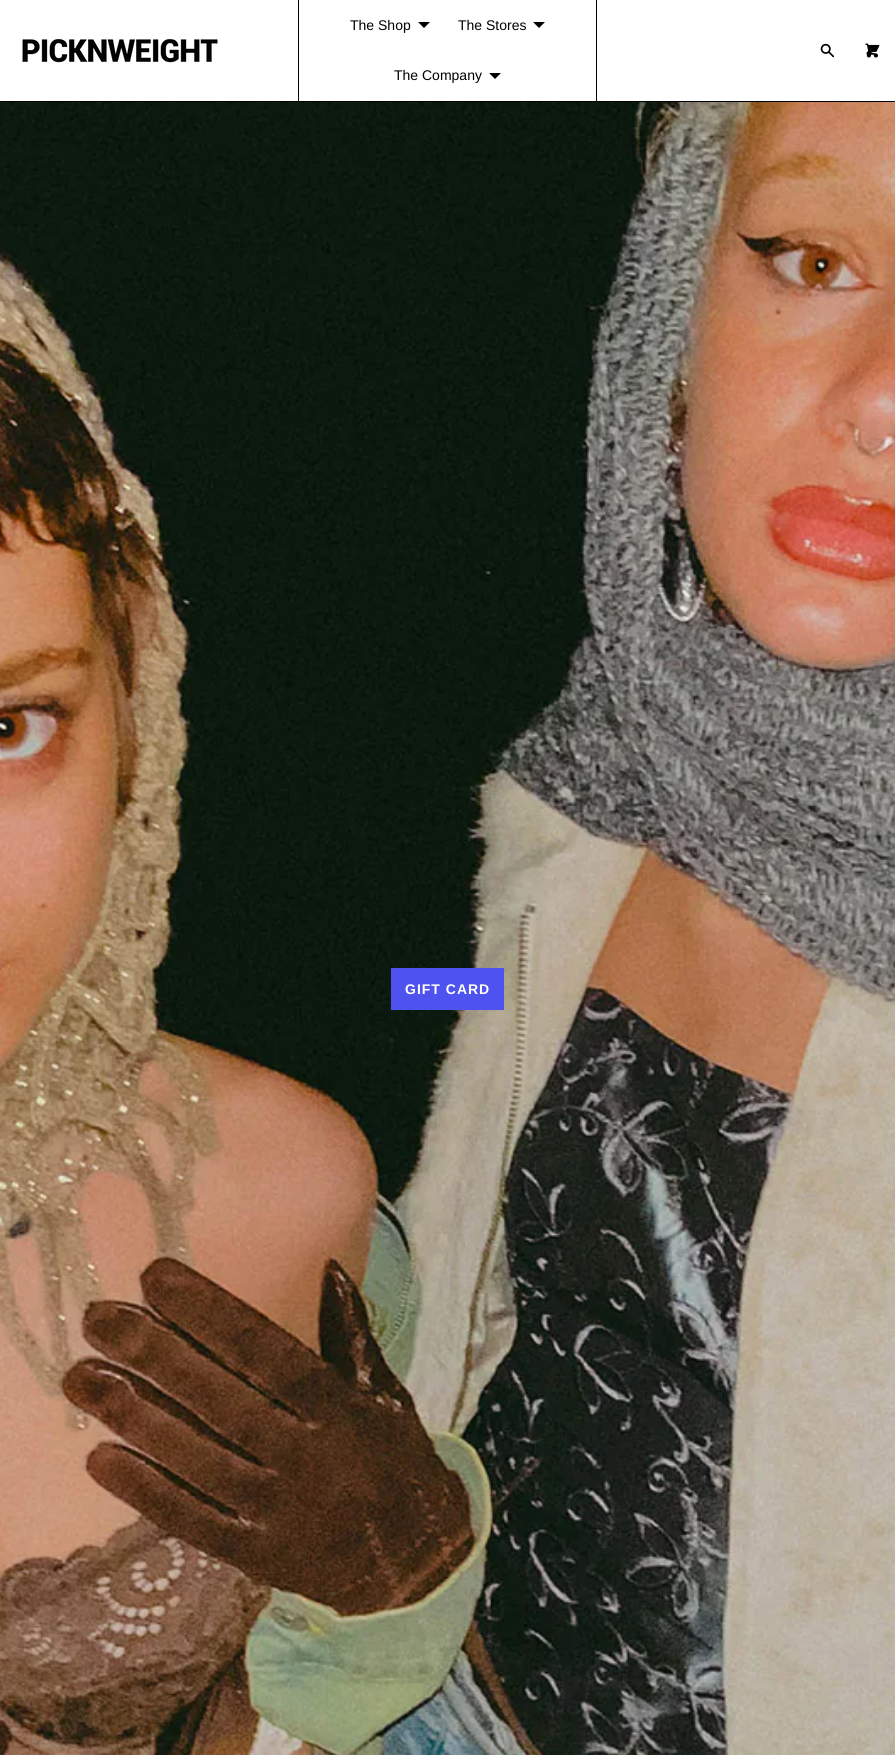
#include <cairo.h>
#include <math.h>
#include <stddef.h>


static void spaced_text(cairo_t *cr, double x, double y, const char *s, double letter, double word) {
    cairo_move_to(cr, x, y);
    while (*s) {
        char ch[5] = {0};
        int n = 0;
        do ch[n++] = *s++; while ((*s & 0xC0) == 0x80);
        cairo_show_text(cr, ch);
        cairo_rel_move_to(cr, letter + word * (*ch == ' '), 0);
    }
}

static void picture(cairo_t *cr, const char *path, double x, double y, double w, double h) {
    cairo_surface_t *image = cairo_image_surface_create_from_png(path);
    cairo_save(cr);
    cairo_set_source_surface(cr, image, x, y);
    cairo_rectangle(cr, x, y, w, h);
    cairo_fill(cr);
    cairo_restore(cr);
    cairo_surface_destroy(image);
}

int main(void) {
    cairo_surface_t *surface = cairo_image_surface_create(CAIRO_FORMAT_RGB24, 895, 1755);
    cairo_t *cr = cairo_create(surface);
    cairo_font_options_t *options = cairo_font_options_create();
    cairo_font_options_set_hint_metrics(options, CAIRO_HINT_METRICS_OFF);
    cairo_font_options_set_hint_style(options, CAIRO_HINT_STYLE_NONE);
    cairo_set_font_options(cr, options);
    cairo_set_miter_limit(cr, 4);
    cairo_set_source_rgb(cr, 1, 1, 1);
    cairo_paint(cr);
    cairo_set_source_rgb(cr, 0, 0, 0);
    cairo_rectangle(cr, 597, 101, 298, 1);
    cairo_fill(cr);
    picture(cr, "img1.png", 22, 38, 196, 25);
    cairo_rectangle(cr, -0.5, -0.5, 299, 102);
    cairo_set_line_width(cr, 1);
    cairo_stroke(cr);
    cairo_set_source_rgb(cr, 0, 0, 0.004);
    cairo_new_path(cr);
    cairo_move_to(cr, 418, 22);
    cairo_line_to(cr, 430, 22);
    cairo_line_to(cr, 424, 28);
    cairo_close_path(cr);
    cairo_fill(cr);
    cairo_new_path(cr);
    cairo_move_to(cr, 533, 22);
    cairo_line_to(cr, 545, 22);
    cairo_line_to(cr, 539, 28);
    cairo_close_path(cr);
    cairo_fill(cr);
    cairo_new_path(cr);
    cairo_move_to(cr, 489, 73);
    cairo_line_to(cr, 501, 73);
    cairo_line_to(cr, 495, 79);
    cairo_close_path(cr);
    cairo_fill(cr);
    cairo_rectangle(cr, 298.5, -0.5, 298, 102);
    cairo_set_source_rgb(cr, 0, 0, 0);
    cairo_stroke(cr);
    cairo_select_font_face(cr, "Liberation Sans", CAIRO_FONT_SLANT_NORMAL, CAIRO_FONT_WEIGHT_NORMAL);
    cairo_set_font_size(cr, 14);
    cairo_set_source_rgb(cr, 0, 0, 0.004);
    cairo_move_to(cr, 350, 30);
    cairo_show_text(cr, "The Shop");
    cairo_move_to(cr, 458, 30);
    cairo_show_text(cr, "The Stores");
    cairo_move_to(cr, 394, 80);
    cairo_show_text(cr, "The Company");
    picture(cr, "img2.png", 820, 43, 15, 15);
    picture(cr, "img3.png", 865, 43, 15, 15);
    picture(cr, "img4.png", 0, 102, 895, 1653);
    cairo_set_source_rgb(cr, 0.306, 0.325, 0.937);
    cairo_rectangle(cr, 391, 968, 113, 42);
    cairo_fill(cr);
    cairo_select_font_face(cr, "Liberation Sans", CAIRO_FONT_SLANT_NORMAL, CAIRO_FONT_WEIGHT_BOLD);
    cairo_set_source_rgb(cr, 1, 1, 1);
    spaced_text(cr, 405, 994, "GIFT CARD", 1, 0);
    cairo_surface_write_to_png(surface, "page.png");
    cairo_font_options_destroy(options);
    cairo_destroy(cr);
    cairo_surface_destroy(surface);
    return 0;
}
